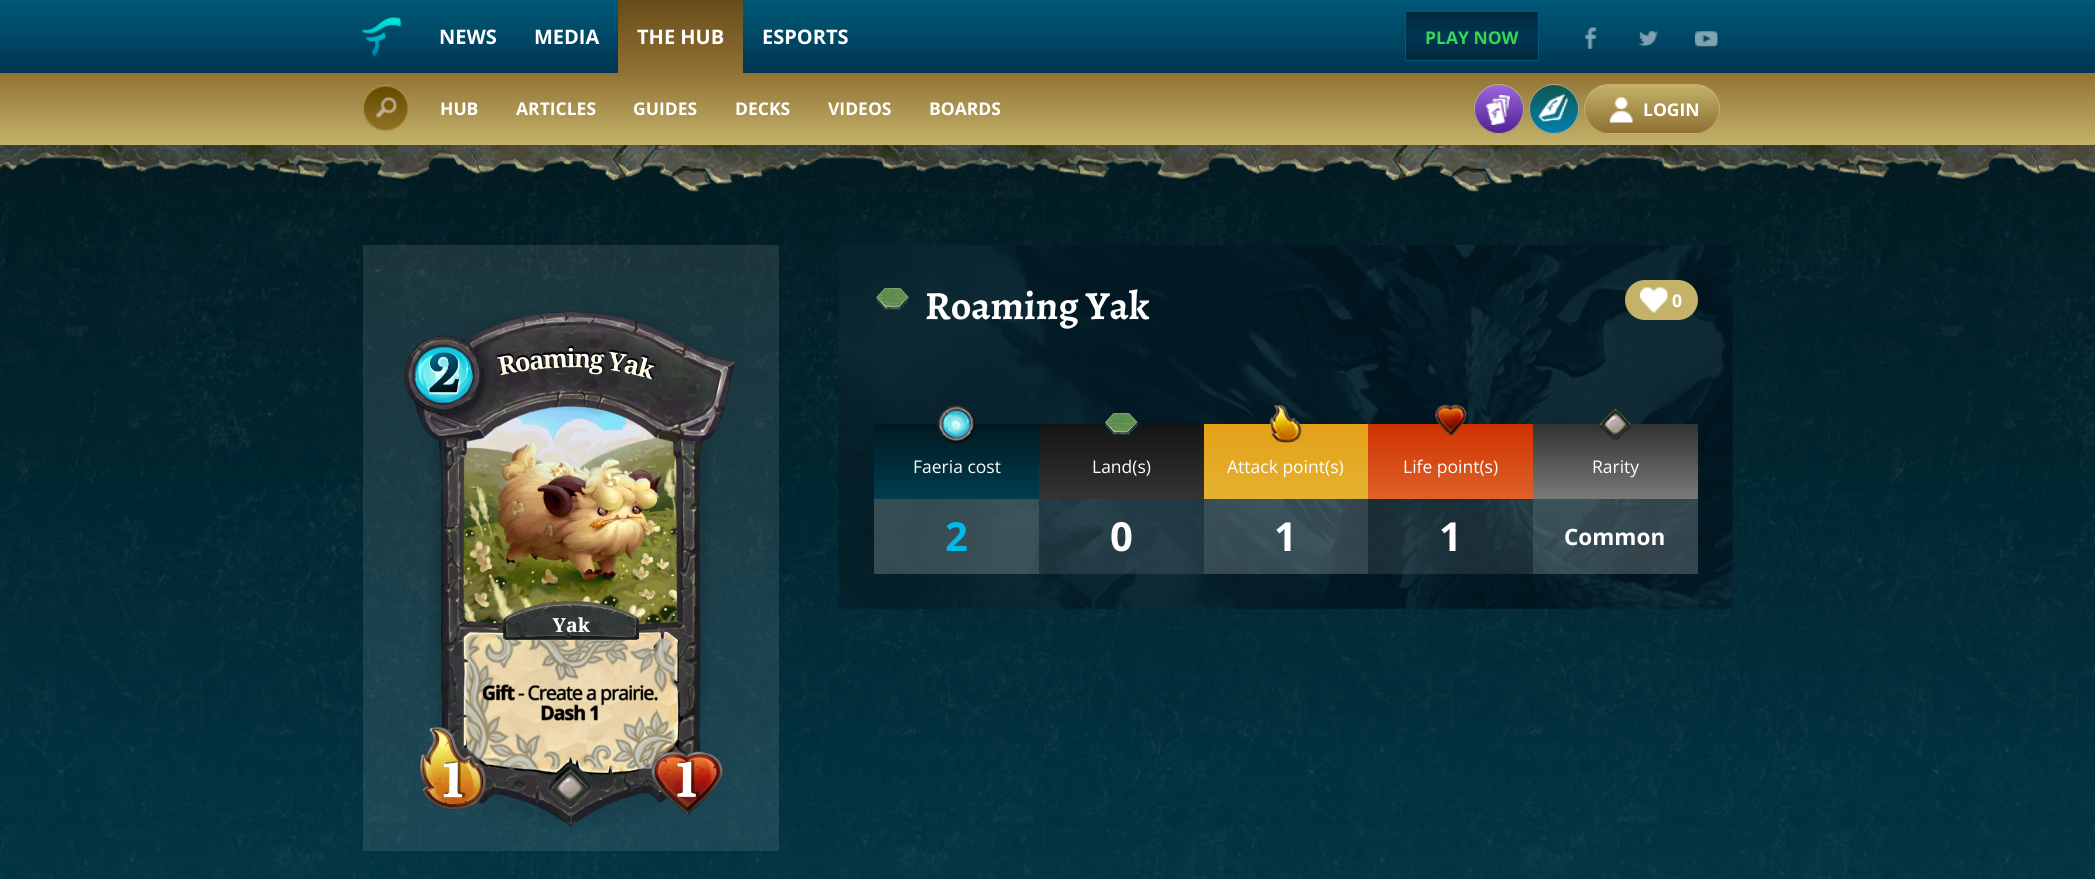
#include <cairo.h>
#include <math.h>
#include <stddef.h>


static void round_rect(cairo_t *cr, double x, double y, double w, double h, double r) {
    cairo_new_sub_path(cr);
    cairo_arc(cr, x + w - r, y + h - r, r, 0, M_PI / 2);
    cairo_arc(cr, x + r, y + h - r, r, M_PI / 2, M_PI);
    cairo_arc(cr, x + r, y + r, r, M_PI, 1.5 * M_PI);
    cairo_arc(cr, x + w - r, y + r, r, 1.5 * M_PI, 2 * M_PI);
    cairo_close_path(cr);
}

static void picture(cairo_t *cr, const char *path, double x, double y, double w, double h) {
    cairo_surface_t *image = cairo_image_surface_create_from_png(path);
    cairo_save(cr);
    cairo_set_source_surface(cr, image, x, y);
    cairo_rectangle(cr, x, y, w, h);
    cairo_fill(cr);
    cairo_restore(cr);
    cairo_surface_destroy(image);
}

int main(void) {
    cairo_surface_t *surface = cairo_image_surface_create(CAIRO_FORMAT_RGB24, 2095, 879);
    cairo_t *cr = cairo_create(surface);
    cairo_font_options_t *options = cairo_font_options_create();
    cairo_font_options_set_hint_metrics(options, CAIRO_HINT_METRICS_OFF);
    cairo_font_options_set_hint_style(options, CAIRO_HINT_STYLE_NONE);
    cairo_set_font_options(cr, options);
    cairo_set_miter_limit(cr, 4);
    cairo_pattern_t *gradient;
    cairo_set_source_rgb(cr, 1, 1, 1);
    cairo_paint(cr);
    gradient = cairo_pattern_create_linear(1048, 0, 1048, 145);
    cairo_pattern_add_color_stop_rgba(gradient, 0, 0, 0.353, 0.471, 1);
    cairo_pattern_add_color_stop_rgba(gradient, 0.5, 0, 0.212, 0.322, 1);
    cairo_set_source(cr, gradient);
    cairo_pattern_destroy(gradient);
    cairo_rectangle(cr, 0, 0, 2095, 73);
    cairo_fill(cr);
    picture(cr, "img1.png", 362, 16, 40, 41);
    cairo_select_font_face(cr, "Open Sans", CAIRO_FONT_SLANT_NORMAL, CAIRO_FONT_WEIGHT_BOLD);
    cairo_set_font_size(cr, 20);
    cairo_set_source_rgb(cr, 1, 1, 1);
    cairo_move_to(cr, 439, 44);
    cairo_show_text(cr, "NEWS");
    cairo_move_to(cr, 534, 44);
    cairo_show_text(cr, "MEDIA");
    gradient = cairo_pattern_create_linear(680, 0, 680, 73);
    cairo_pattern_add_color_stop_rgba(gradient, 0, 0.404, 0.302, 0.098, 1);
    cairo_pattern_add_color_stop_rgba(gradient, 1, 0.569, 0.443, 0.204, 1);
    cairo_set_source(cr, gradient);
    cairo_pattern_destroy(gradient);
    cairo_rectangle(cr, 618, 0, 125, 73);
    cairo_fill(cr);
    cairo_set_source_rgb(cr, 1, 1, 1);
    cairo_move_to(cr, 637, 44);
    cairo_show_text(cr, "THE HUB");
    cairo_move_to(cr, 762, 44);
    cairo_show_text(cr, "ESPORTS");
    gradient = cairo_pattern_create_linear(1472, -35, 1472, 13);
    cairo_pattern_add_color_stop_rgba(gradient, 0, 0, 0.161, 0.239, 1);
    cairo_pattern_add_color_stop_rgba(gradient, 0.5, 0, 0.212, 0.322, 1);
    cairo_pattern_add_color_stop_rgba(gradient, 1, 0, 0.161, 0.239, 1);
    cairo_set_source(cr, gradient);
    cairo_pattern_destroy(gradient);
    cairo_rectangle(cr, 1405, 12, 134, 1);
    cairo_fill(cr);
    gradient = cairo_pattern_create_linear(1472, 12, 1472, 60);
    cairo_pattern_add_color_stop_rgba(gradient, 0, 0, 0.161, 0.239, 1);
    cairo_pattern_add_color_stop_rgba(gradient, 0.5, 0, 0.212, 0.322, 1);
    cairo_pattern_add_color_stop_rgba(gradient, 1, 0, 0.161, 0.239, 1);
    cairo_set_source(cr, gradient);
    cairo_pattern_destroy(gradient);
    cairo_rectangle(cr, 1406, 13, 132, 47);
    cairo_fill(cr);
    cairo_rectangle(cr, 1405.5, 11.5, 133, 49);
    cairo_set_source_rgb(cr, 0, 0.353, 0.471);
    cairo_set_line_width(cr, 1);
    cairo_stroke(cr);
    cairo_set_font_size(cr, 17.5);
    cairo_set_source_rgb(cr, 0.212, 0.831, 0.341);
    cairo_move_to(cr, 1425, 44);
    cairo_show_text(cr, "PLAY NOW");
    picture(cr, "img2.png", 1585, 27, 12, 22);
    picture(cr, "img3.png", 1638, 31, 20, 16);
    picture(cr, "img4.png", 1695, 31, 23, 16);
    gradient = cairo_pattern_create_linear(1048, 72, 1048, 145);
    cairo_pattern_add_color_stop_rgba(gradient, 0, 0.569, 0.443, 0.204, 1);
    cairo_pattern_add_color_stop_rgba(gradient, 1, 0.765, 0.702, 0.416, 1);
    cairo_set_source(cr, gradient);
    cairo_pattern_destroy(gradient);
    cairo_rectangle(cr, 0, 73, 2095, 72);
    cairo_fill(cr);
    picture(cr, "img5.png", 362, 85, 47, 47);
    cairo_set_source_rgb(cr, 1, 1, 1);
    cairo_move_to(cr, 440, 115);
    cairo_show_text(cr, "HUB");
    cairo_move_to(cr, 516, 115);
    cairo_show_text(cr, "ARTICLES");
    cairo_move_to(cr, 633, 115);
    cairo_show_text(cr, "GUIDES");
    cairo_move_to(cr, 735, 115);
    cairo_show_text(cr, "DECKS");
    cairo_move_to(cr, 828, 115);
    cairo_show_text(cr, "VIDEOS");
    cairo_move_to(cr, 929, 115);
    cairo_show_text(cr, "BOARDS");
    cairo_save(cr);
    round_rect(cr, 1474, 84, 50, 50, 25);
    cairo_clip(cr);
    gradient = cairo_pattern_create_linear(1499, 85, 1499, 180);
    cairo_pattern_add_color_stop_rgba(gradient, 0, 0.608, 0.404, 0.863, 1);
    cairo_pattern_add_color_stop_rgba(gradient, 0.5, 0.318, 0.137, 0.584, 1);
    cairo_pattern_add_color_stop_rgba(gradient, 1, 0.608, 0.404, 0.863, 1);
    cairo_set_source(cr, gradient);
    cairo_pattern_destroy(gradient);
    cairo_new_path(cr);
    cairo_move_to(cr, 1474, 85);
    cairo_line_to(cr, 1524, 85);
    cairo_line_to(cr, 1524, 109);
    cairo_curve_to(cr, 1524, 123, 1513, 134, 1499, 134);
    cairo_curve_to(cr, 1485, 134, 1474, 123, 1474, 109);
    cairo_close_path(cr);
    cairo_fill(cr);
    cairo_restore(cr);
    cairo_arc(cr, 1499, 109, 24.5, 0, 2 * M_PI);
    cairo_set_source_rgb(cr, 0.733, 0.675, 0.498);
    cairo_stroke(cr);
    picture(cr, "img6.png", 1486, 95, 24, 30);
    cairo_save(cr);
    round_rect(cr, 1529, 84, 50, 50, 25);
    cairo_clip(cr);
    gradient = cairo_pattern_create_linear(1554, 85, 1554, 180);
    cairo_pattern_add_color_stop_rgba(gradient, 0, 0.059, 0.341, 0.31, 1);
    cairo_pattern_add_color_stop_rgba(gradient, 0.5, 0, 0.502, 0.686, 1);
    cairo_pattern_add_color_stop_rgba(gradient, 1, 0.059, 0.341, 0.31, 1);
    cairo_set_source(cr, gradient);
    cairo_pattern_destroy(gradient);
    cairo_new_path(cr);
    cairo_move_to(cr, 1529, 85);
    cairo_line_to(cr, 1579, 85);
    cairo_line_to(cr, 1579, 109);
    cairo_curve_to(cr, 1579, 123, 1568, 134, 1554, 134);
    cairo_curve_to(cr, 1540, 134, 1529, 123, 1529, 109);
    cairo_close_path(cr);
    cairo_fill(cr);
    cairo_restore(cr);
    cairo_arc(cr, 1554, 109, 24.5, 0, 2 * M_PI);
    cairo_stroke(cr);
    picture(cr, "img7.png", 1538, 93, 30, 29);
    cairo_save(cr);
    round_rect(cr, 1584, 84, 136, 50, 25);
    cairo_clip(cr);
    gradient = cairo_pattern_create_linear(1652, 85, 1652, 180);
    cairo_pattern_add_color_stop_rgba(gradient, 0, 0.765, 0.698, 0.408, 1);
    cairo_pattern_add_color_stop_rgba(gradient, 0.5, 0.565, 0.443, 0.204, 1);
    cairo_pattern_add_color_stop_rgba(gradient, 1, 0.765, 0.698, 0.408, 1);
    cairo_set_source(cr, gradient);
    cairo_pattern_destroy(gradient);
    cairo_new_path(cr);
    cairo_move_to(cr, 1584, 85);
    cairo_line_to(cr, 1720, 85);
    cairo_line_to(cr, 1720, 109);
    cairo_curve_to(cr, 1720, 123, 1709, 134, 1695, 134);
    cairo_line_to(cr, 1609, 134);
    cairo_curve_to(cr, 1595, 134, 1584, 123, 1584, 109);
    cairo_close_path(cr);
    cairo_fill(cr);
    cairo_restore(cr);
    round_rect(cr, 1584.5, 84.5, 135, 49, 24.5);
    cairo_set_source_rgb(cr, 0.765, 0.698, 0.408);
    cairo_stroke(cr);
    picture(cr, "img8.png", 1610, 97, 23, 26);
    cairo_set_source_rgb(cr, 1, 1, 1);
    cairo_move_to(cr, 1643, 116);
    cairo_show_text(cr, "LOGIN");
    gradient = cairo_pattern_create_linear(1047, 145, 1048, 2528);
    cairo_pattern_add_color_stop_rgba(gradient, 0, 0, 0.098, 0.125, 1);
    cairo_pattern_add_color_stop_rgba(gradient, 0.42, 0, 0.239, 0.31, 1);
    cairo_set_source(cr, gradient);
    cairo_pattern_destroy(gradient);
    cairo_rectangle(cr, 0, 145, 2095, 734);
    cairo_fill(cr);
    picture(cr, "img10.png", 0, 145, 2095, 734);
    picture(cr, "img9.png", 0, 145, 2095, 47);
    cairo_set_source_rgba(cr, 1, 1, 1, 0.1);
    cairo_rectangle(cr, 363, 245, 416, 606);
    cairo_fill(cr);
    picture(cr, "img11.png", 404, 311, 332, 516);
    picture(cr, "img12.png", 838, 245, 895, 364);
    picture(cr, "img13.png", 876, 288, 33, 22);
    cairo_select_font_face(cr, "Alegreya", CAIRO_FONT_SLANT_NORMAL, CAIRO_FONT_WEIGHT_BOLD);
    cairo_set_font_size(cr, 40);
    cairo_set_source_rgb(cr, 1, 1, 1);
    cairo_move_to(cr, 925, 319);
    cairo_show_text(cr, "Roaming Yak");
    cairo_set_source_rgb(cr, 0.765, 0.698, 0.408);
    round_rect(cr, 1625, 280, 73, 40, 20);
    cairo_fill(cr);
    picture(cr, "img14.png", 1640, 287, 28, 26);
    cairo_select_font_face(cr, "Open Sans", CAIRO_FONT_SLANT_NORMAL, CAIRO_FONT_WEIGHT_BOLD);
    cairo_set_font_size(cr, 17.5);
    cairo_set_source_rgb(cr, 1, 1, 1);
    cairo_move_to(cr, 1672, 307);
    cairo_show_text(cr, "0");
    gradient = cairo_pattern_create_linear(956, 424, 956, 499);
    cairo_pattern_add_color_stop_rgba(gradient, 0, 0, 0.098, 0.125, 1);
    cairo_pattern_add_color_stop_rgba(gradient, 1, 0, 0.239, 0.31, 1);
    cairo_set_source(cr, gradient);
    cairo_pattern_destroy(gradient);
    cairo_rectangle(cr, 874, 424, 165, 75);
    cairo_fill(cr);
    picture(cr, "img15.png", 937, 405, 38, 38);
    cairo_select_font_face(cr, "Open Sans", CAIRO_FONT_SLANT_NORMAL, CAIRO_FONT_WEIGHT_NORMAL);
    cairo_set_source_rgb(cr, 1, 1, 1);
    cairo_move_to(cr, 913, 473);
    cairo_show_text(cr, "Faeria cost");
    cairo_set_source_rgba(cr, 1, 1, 1, 0.2);
    cairo_rectangle(cr, 874, 499, 165, 75);
    cairo_fill(cr);
    cairo_select_font_face(cr, "Open Sans", CAIRO_FONT_SLANT_NORMAL, CAIRO_FONT_WEIGHT_BOLD);
    cairo_set_font_size(cr, 40);
    cairo_set_source_rgb(cr, 0, 0.729, 0.91);
    cairo_move_to(cr, 945, 551);
    cairo_show_text(cr, "2");
    gradient = cairo_pattern_create_linear(1121, 424, 1121, 499);
    cairo_pattern_add_color_stop_rgba(gradient, 0, 0.078, 0.078, 0.078, 1);
    cairo_pattern_add_color_stop_rgba(gradient, 1, 0.204, 0.204, 0.204, 1);
    cairo_set_source(cr, gradient);
    cairo_pattern_destroy(gradient);
    cairo_rectangle(cr, 1039, 424, 165, 75);
    cairo_fill(cr);
    picture(cr, "img16.png", 1105, 413, 33, 22);
    cairo_select_font_face(cr, "Open Sans", CAIRO_FONT_SLANT_NORMAL, CAIRO_FONT_WEIGHT_NORMAL);
    cairo_set_font_size(cr, 17.5);
    cairo_set_source_rgb(cr, 1, 1, 1);
    cairo_move_to(cr, 1092, 473);
    cairo_show_text(cr, "Land(s)");
    cairo_set_source_rgba(cr, 1, 1, 1, 0.1);
    cairo_rectangle(cr, 1039, 499, 165, 75);
    cairo_fill(cr);
    cairo_select_font_face(cr, "Open Sans", CAIRO_FONT_SLANT_NORMAL, CAIRO_FONT_WEIGHT_BOLD);
    cairo_set_font_size(cr, 40);
    cairo_set_source_rgb(cr, 1, 1, 1);
    cairo_move_to(cr, 1110, 551);
    cairo_show_text(cr, "0");
    gradient = cairo_pattern_create_linear(1286, 424, 1286, 499);
    cairo_pattern_add_color_stop_rgba(gradient, 0, 0.898, 0.627, 0.094, 1);
    cairo_pattern_add_color_stop_rgba(gradient, 1, 0.89, 0.698, 0.192, 1);
    cairo_set_source(cr, gradient);
    cairo_pattern_destroy(gradient);
    cairo_rectangle(cr, 1204, 424, 164, 75);
    cairo_fill(cr);
    picture(cr, "img17.png", 1270, 405, 32, 38);
    cairo_select_font_face(cr, "Open Sans", CAIRO_FONT_SLANT_NORMAL, CAIRO_FONT_WEIGHT_NORMAL);
    cairo_set_font_size(cr, 17.5);
    cairo_set_source_rgb(cr, 1, 1, 1);
    cairo_move_to(cr, 1227, 473);
    cairo_show_text(cr, "Attack point(s)");
    cairo_set_source_rgba(cr, 1, 1, 1, 0.2);
    cairo_rectangle(cr, 1204, 499, 164, 75);
    cairo_fill(cr);
    cairo_select_font_face(cr, "Open Sans", CAIRO_FONT_SLANT_NORMAL, CAIRO_FONT_WEIGHT_BOLD);
    cairo_set_font_size(cr, 40);
    cairo_set_source_rgb(cr, 1, 1, 1);
    cairo_move_to(cr, 1274, 551);
    cairo_show_text(cr, "1");
    gradient = cairo_pattern_create_linear(1450, 424, 1450, 499);
    cairo_pattern_add_color_stop_rgba(gradient, 0, 0.812, 0.196, 0.004, 1);
    cairo_pattern_add_color_stop_rgba(gradient, 1, 0.871, 0.384, 0.161, 1);
    cairo_set_source(cr, gradient);
    cairo_pattern_destroy(gradient);
    cairo_rectangle(cr, 1368, 424, 165, 75);
    cairo_fill(cr);
    picture(cr, "img18.png", 1435, 405, 32, 30);
    cairo_select_font_face(cr, "Open Sans", CAIRO_FONT_SLANT_NORMAL, CAIRO_FONT_WEIGHT_NORMAL);
    cairo_set_font_size(cr, 17.5);
    cairo_set_source_rgb(cr, 1, 1, 1);
    cairo_move_to(cr, 1403, 473);
    cairo_show_text(cr, "Life point(s)");
    cairo_set_source_rgba(cr, 1, 1, 1, 0.1);
    cairo_rectangle(cr, 1368, 499, 165, 75);
    cairo_fill(cr);
    cairo_select_font_face(cr, "Open Sans", CAIRO_FONT_SLANT_NORMAL, CAIRO_FONT_WEIGHT_BOLD);
    cairo_set_font_size(cr, 40);
    cairo_set_source_rgb(cr, 1, 1, 1);
    cairo_move_to(cr, 1439, 551);
    cairo_show_text(cr, "1");
    gradient = cairo_pattern_create_linear(1615, 424, 1615, 499);
    cairo_pattern_add_color_stop_rgba(gradient, 0, 0.196, 0.196, 0.196, 1);
    cairo_pattern_add_color_stop_rgba(gradient, 1, 0.478, 0.478, 0.478, 1);
    cairo_set_source(cr, gradient);
    cairo_pattern_destroy(gradient);
    cairo_rectangle(cr, 1533, 424, 165, 75);
    cairo_fill(cr);
    picture(cr, "img19.png", 1599, 408, 33, 33);
    cairo_select_font_face(cr, "Open Sans", CAIRO_FONT_SLANT_NORMAL, CAIRO_FONT_WEIGHT_NORMAL);
    cairo_set_font_size(cr, 17.5);
    cairo_set_source_rgb(cr, 1, 1, 1);
    cairo_move_to(cr, 1592, 473);
    cairo_show_text(cr, "Rarity");
    cairo_set_source_rgba(cr, 1, 1, 1, 0.2);
    cairo_rectangle(cr, 1533, 499, 165, 75);
    cairo_fill(cr);
    cairo_select_font_face(cr, "Open Sans", CAIRO_FONT_SLANT_NORMAL, CAIRO_FONT_WEIGHT_BOLD);
    cairo_set_font_size(cr, 22.5);
    cairo_set_source_rgb(cr, 1, 1, 1);
    cairo_move_to(cr, 1564, 545);
    cairo_show_text(cr, "Common");
    cairo_surface_write_to_png(surface, "page.png");
    cairo_font_options_destroy(options);
    cairo_destroy(cr);
    cairo_surface_destroy(surface);
    return 0;
}
